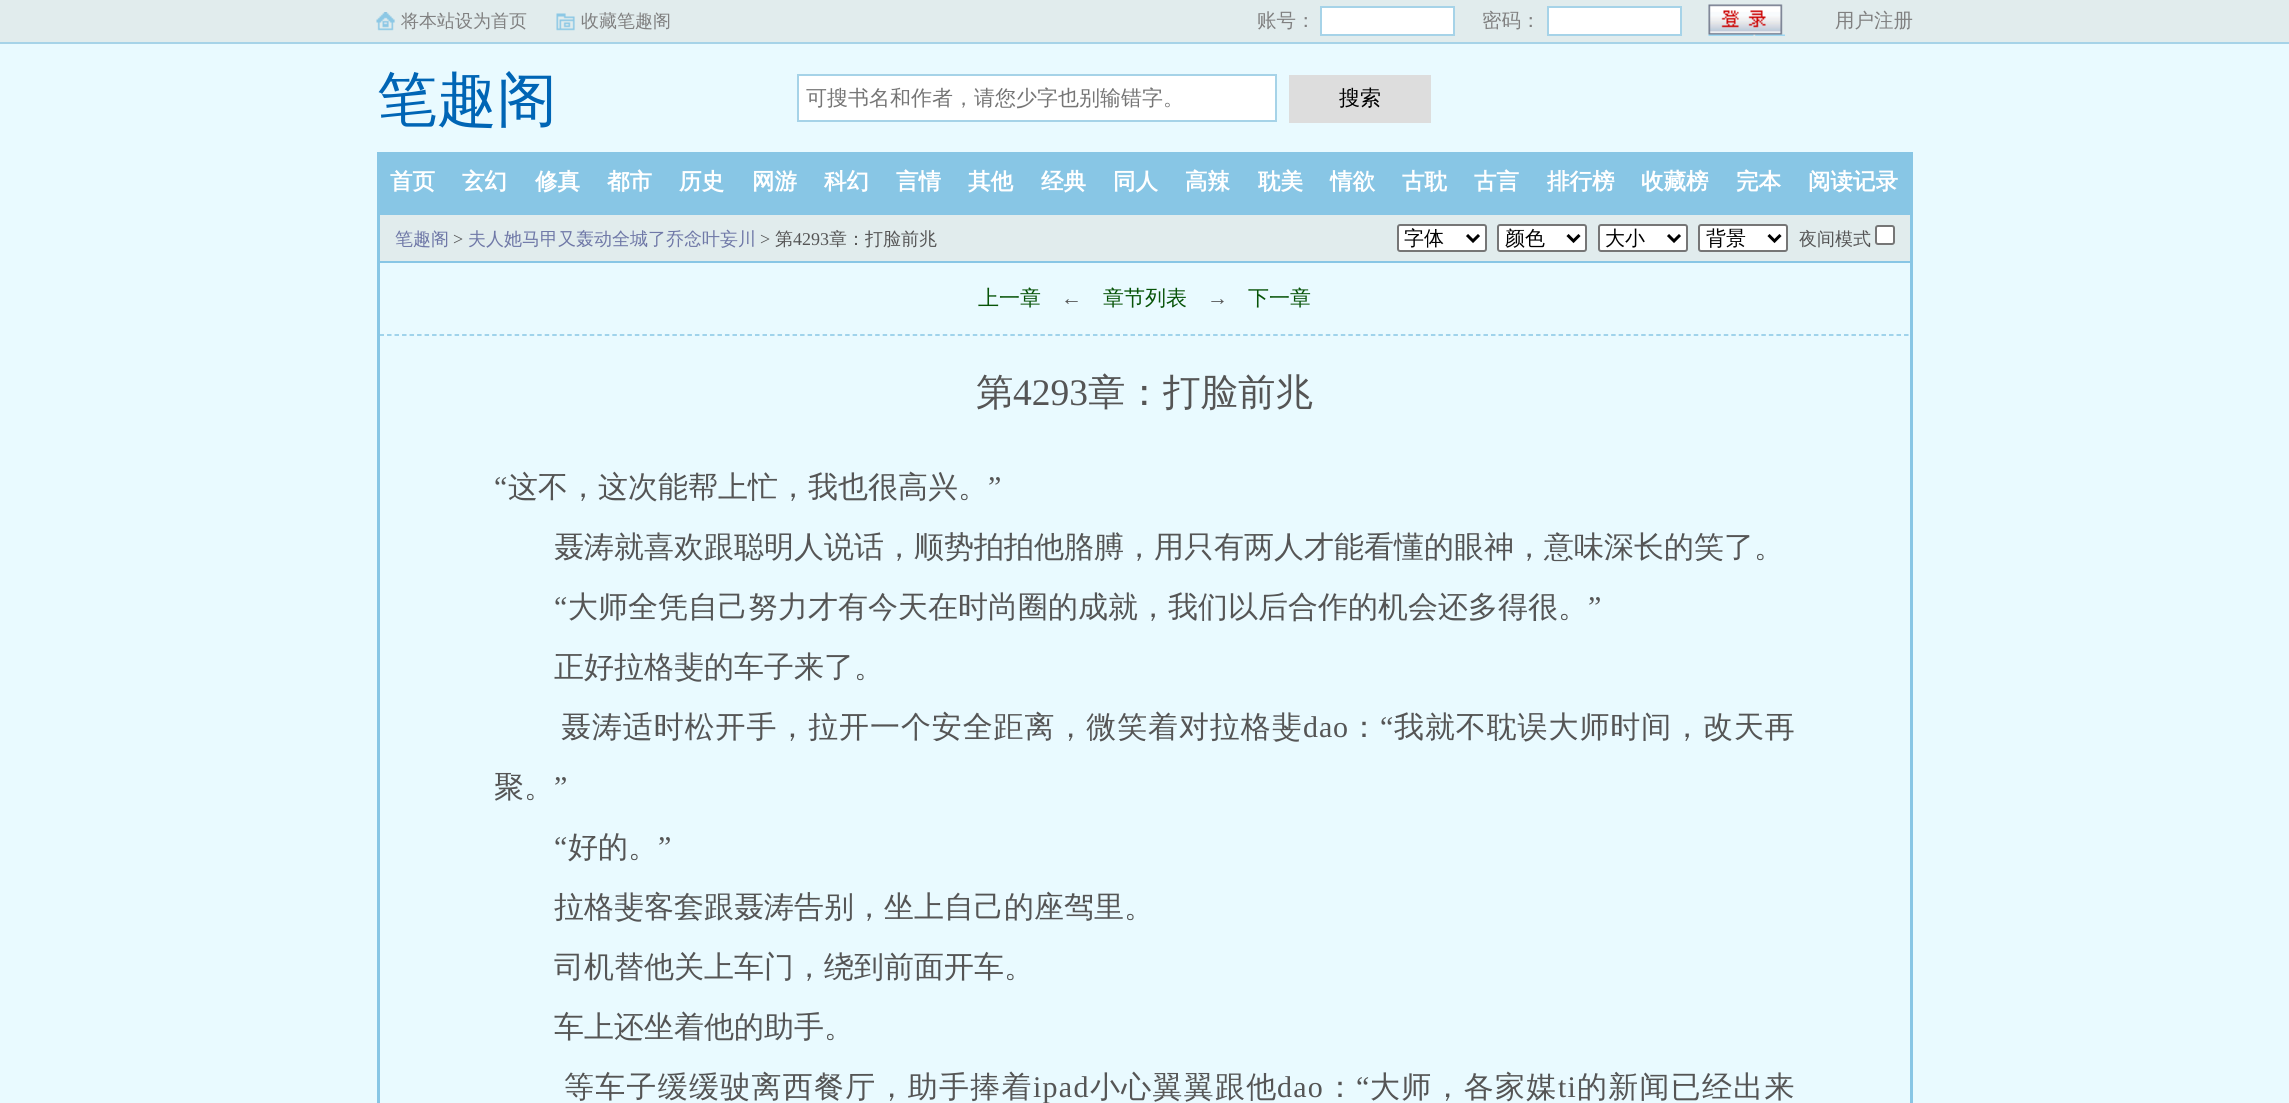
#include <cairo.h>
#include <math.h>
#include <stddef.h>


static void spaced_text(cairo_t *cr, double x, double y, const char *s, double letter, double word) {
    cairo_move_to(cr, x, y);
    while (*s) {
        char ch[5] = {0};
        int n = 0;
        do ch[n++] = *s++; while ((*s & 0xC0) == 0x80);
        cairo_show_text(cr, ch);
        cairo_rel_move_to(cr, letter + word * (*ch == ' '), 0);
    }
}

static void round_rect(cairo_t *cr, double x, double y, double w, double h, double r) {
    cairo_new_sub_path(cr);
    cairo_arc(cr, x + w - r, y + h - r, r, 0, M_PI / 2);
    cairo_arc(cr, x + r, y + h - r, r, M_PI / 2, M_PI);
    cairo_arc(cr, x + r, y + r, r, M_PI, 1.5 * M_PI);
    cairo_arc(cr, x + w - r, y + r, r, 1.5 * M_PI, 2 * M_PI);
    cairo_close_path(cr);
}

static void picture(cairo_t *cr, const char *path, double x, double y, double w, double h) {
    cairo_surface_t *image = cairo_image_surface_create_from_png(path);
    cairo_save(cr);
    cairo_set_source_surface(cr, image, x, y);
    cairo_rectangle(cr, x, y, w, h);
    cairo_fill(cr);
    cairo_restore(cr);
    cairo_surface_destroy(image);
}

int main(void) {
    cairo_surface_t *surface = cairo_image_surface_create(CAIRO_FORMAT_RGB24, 2289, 1103);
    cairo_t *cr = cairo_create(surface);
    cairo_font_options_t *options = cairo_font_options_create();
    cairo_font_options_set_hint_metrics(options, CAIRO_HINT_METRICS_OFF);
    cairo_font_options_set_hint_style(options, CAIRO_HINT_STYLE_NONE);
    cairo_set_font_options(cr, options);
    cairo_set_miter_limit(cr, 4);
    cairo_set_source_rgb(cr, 0.914, 0.98, 1);
    cairo_paint(cr);
    cairo_set_source_rgb(cr, 0.882, 0.925, 0.929);
    cairo_rectangle(cr, 0, 0, 2289, 42);
    cairo_fill(cr);
    cairo_set_source_rgb(cr, 0.651, 0.827, 0.91);
    cairo_rectangle(cr, 0, 42, 2289, 2);
    cairo_fill(cr);
    picture(cr, "img1.png", 376, 12, 19, 19);
    cairo_select_font_face(cr, "WenQuanYi Zen Hei Medium", CAIRO_FONT_SLANT_NORMAL, CAIRO_FONT_WEIGHT_NORMAL);
    cairo_set_font_size(cr, 18);
    cairo_set_source_rgb(cr, 0.502, 0.502, 0.502);
    cairo_move_to(cr, 401, 27);
    cairo_show_text(cr, "将本站设为首页");
    picture(cr, "img2.png", 556, 13, 19, 18);
    cairo_move_to(cr, 581, 27);
    cairo_show_text(cr, "收藏笔趣阁");
    cairo_set_font_size(cr, 19.5);
    cairo_move_to(cr, 1257, 27);
    cairo_show_text(cr, "账号：");
    cairo_set_source_rgb(cr, 1, 1, 1);
    cairo_rectangle(cr, 1321, 7, 133, 28);
    cairo_fill_preserve(cr);
    cairo_set_source_rgb(cr, 0.651, 0.827, 0.91);
    cairo_stroke(cr);
    cairo_set_source_rgb(cr, 0.502, 0.502, 0.502);
    cairo_move_to(cr, 1482, 27);
    cairo_show_text(cr, "密码：");
    cairo_set_source_rgb(cr, 1, 1, 1);
    cairo_rectangle(cr, 1548, 7, 133, 28);
    cairo_fill_preserve(cr);
    cairo_set_source_rgb(cr, 0.651, 0.827, 0.91);
    cairo_stroke(cr);
    picture(cr, "img3.png", 1708, 4, 77, 32);
    cairo_set_source_rgb(cr, 0.502, 0.502, 0.502);
    cairo_move_to(cr, 1835, 27);
    cairo_show_text(cr, "用户注册");
    cairo_set_font_size(cr, 60);
    cairo_set_source_rgb(cr, 0, 0.396, 0.71);
    cairo_move_to(cr, 377, 120);
    cairo_show_text(cr, "笔趣阁");
    cairo_set_source_rgb(cr, 1, 1, 1);
    cairo_rectangle(cr, 798, 75, 478, 46);
    cairo_fill_preserve(cr);
    cairo_set_source_rgb(cr, 0.651, 0.827, 0.91);
    cairo_stroke(cr);
    cairo_set_font_size(cr, 21);
    cairo_set_source_rgb(cr, 0.459, 0.459, 0.459);
    cairo_move_to(cr, 806, 105);
    cairo_show_text(cr, "可搜书名和作者，请您少字也别输错字。");
    cairo_set_source_rgb(cr, 0.867, 0.867, 0.867);
    cairo_rectangle(cr, 1289, 75, 142, 48);
    cairo_fill(cr);
    cairo_set_source_rgb(cr, 0, 0, 0);
    cairo_move_to(cr, 1339, 105);
    cairo_show_text(cr, "搜索");
    cairo_set_source_rgb(cr, 0.533, 0.776, 0.898);
    cairo_rectangle(cr, 377, 152, 1536, 60);
    cairo_fill(cr);
    cairo_select_font_face(cr, "WenQuanYi Zen Hei", CAIRO_FONT_SLANT_NORMAL, CAIRO_FONT_WEIGHT_BOLD);
    cairo_set_font_size(cr, 22.5);
    cairo_set_source_rgb(cr, 1, 1, 1);
    cairo_move_to(cr, 390, 189);
    cairo_show_text(cr, "首页");
    cairo_move_to(cr, 462, 189);
    cairo_show_text(cr, "玄幻");
    cairo_move_to(cr, 535, 189);
    cairo_show_text(cr, "修真");
    cairo_move_to(cr, 607, 189);
    cairo_show_text(cr, "都市");
    cairo_move_to(cr, 679, 189);
    cairo_show_text(cr, "历史");
    cairo_move_to(cr, 752, 189);
    cairo_show_text(cr, "网游");
    cairo_move_to(cr, 824, 189);
    cairo_show_text(cr, "科幻");
    cairo_move_to(cr, 896, 189);
    cairo_show_text(cr, "言情");
    cairo_move_to(cr, 968, 189);
    cairo_show_text(cr, "其他");
    cairo_move_to(cr, 1041, 189);
    cairo_show_text(cr, "经典");
    cairo_move_to(cr, 1113, 189);
    cairo_show_text(cr, "同人");
    cairo_move_to(cr, 1185, 189);
    cairo_show_text(cr, "高辣");
    cairo_move_to(cr, 1258, 189);
    cairo_show_text(cr, "耽美");
    cairo_move_to(cr, 1330, 189);
    cairo_show_text(cr, "情欲");
    cairo_move_to(cr, 1402, 189);
    cairo_show_text(cr, "古耽");
    cairo_move_to(cr, 1474, 189);
    cairo_show_text(cr, "古言");
    cairo_move_to(cr, 1547, 189);
    cairo_show_text(cr, "排行榜");
    cairo_move_to(cr, 1641, 189);
    cairo_show_text(cr, "收藏榜");
    cairo_move_to(cr, 1736, 189);
    cairo_show_text(cr, "完本");
    cairo_move_to(cr, 1808, 189);
    cairo_show_text(cr, "阅读记录");
    cairo_rectangle(cr, 378.5, 213.5, 1533, 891);
    cairo_set_source_rgb(cr, 0.533, 0.776, 0.898);
    cairo_set_line_width(cr, 3);
    cairo_stroke(cr);
    cairo_set_source_rgb(cr, 0.882, 0.925, 0.929);
    cairo_rectangle(cr, 380, 215, 1530, 46);
    cairo_fill(cr);
    cairo_set_source_rgb(cr, 0.533, 0.776, 0.898);
    cairo_rectangle(cr, 380, 261, 1530, 2);
    cairo_fill(cr);
    cairo_select_font_face(cr, "WenQuanYi Zen Hei Medium", CAIRO_FONT_SLANT_NORMAL, CAIRO_FONT_WEIGHT_NORMAL);
    cairo_set_font_size(cr, 18);
    cairo_set_source_rgb(cr, 0.435, 0.471, 0.655);
    cairo_move_to(cr, 395, 245);
    cairo_show_text(cr, "笔趣阁");
    cairo_select_font_face(cr, "Liberation Serif", CAIRO_FONT_SLANT_NORMAL, CAIRO_FONT_WEIGHT_NORMAL);
    cairo_set_source_rgb(cr, 0.333, 0.333, 0.333);
    cairo_move_to(cr, 453, 245);
    cairo_show_text(cr, ">");
    cairo_select_font_face(cr, "WenQuanYi Zen Hei Medium", CAIRO_FONT_SLANT_NORMAL, CAIRO_FONT_WEIGHT_NORMAL);
    cairo_set_source_rgb(cr, 0.435, 0.471, 0.655);
    cairo_move_to(cr, 468, 245);
    cairo_show_text(cr, "夫人她马甲又轰动全城了乔念叶妄川");
    cairo_select_font_face(cr, "Liberation Serif", CAIRO_FONT_SLANT_NORMAL, CAIRO_FONT_WEIGHT_NORMAL);
    cairo_set_source_rgb(cr, 0.333, 0.333, 0.333);
    cairo_move_to(cr, 760, 245);
    cairo_show_text(cr, ">");
    cairo_select_font_face(cr, "WenQuanYi Zen Hei Medium", CAIRO_FONT_SLANT_NORMAL, CAIRO_FONT_WEIGHT_NORMAL);
    cairo_move_to(cr, 775, 245);
    cairo_show_text(cr, "第");
    cairo_select_font_face(cr, "Liberation Serif", CAIRO_FONT_SLANT_NORMAL, CAIRO_FONT_WEIGHT_NORMAL);
    cairo_move_to(cr, 793, 245);
    cairo_show_text(cr, "4293");
    cairo_select_font_face(cr, "WenQuanYi Zen Hei Medium", CAIRO_FONT_SLANT_NORMAL, CAIRO_FONT_WEIGHT_NORMAL);
    cairo_move_to(cr, 829, 245);
    cairo_show_text(cr, "章：打脸前兆");
    cairo_set_source_rgb(cr, 1, 1, 1);
    round_rect(cr, 1398, 225, 88, 26, 2);
    cairo_fill_preserve(cr);
    cairo_set_source_rgb(cr, 0.463, 0.463, 0.463);
    cairo_set_line_width(cr, 2);
    cairo_stroke(cr);
    cairo_new_path(cr);
    cairo_move_to(cr, 1467, 235);
    cairo_line_to(cr, 1473, 241);
    cairo_line_to(cr, 1479, 235);
    cairo_set_source_rgb(cr, 0, 0, 0);
    cairo_set_line_width(cr, 3);
    cairo_stroke(cr);
    cairo_set_font_size(cr, 20);
    cairo_move_to(cr, 1404, 245);
    cairo_show_text(cr, "字体");
    cairo_set_source_rgb(cr, 1, 1, 1);
    round_rect(cr, 1498, 225, 88, 26, 2);
    cairo_fill_preserve(cr);
    cairo_set_source_rgb(cr, 0.463, 0.463, 0.463);
    cairo_set_line_width(cr, 2);
    cairo_stroke(cr);
    cairo_new_path(cr);
    cairo_move_to(cr, 1567.5, 235);
    cairo_line_to(cr, 1573.5, 241);
    cairo_line_to(cr, 1579.5, 235);
    cairo_set_source_rgb(cr, 0, 0, 0);
    cairo_set_line_width(cr, 3);
    cairo_stroke(cr);
    cairo_move_to(cr, 1505, 245);
    cairo_show_text(cr, "颜色");
    cairo_set_source_rgb(cr, 1, 1, 1);
    round_rect(cr, 1599, 225, 88, 26, 2);
    cairo_fill_preserve(cr);
    cairo_set_source_rgb(cr, 0.463, 0.463, 0.463);
    cairo_set_line_width(cr, 2);
    cairo_stroke(cr);
    cairo_new_path(cr);
    cairo_move_to(cr, 1668, 235);
    cairo_line_to(cr, 1674, 241);
    cairo_line_to(cr, 1680, 235);
    cairo_set_source_rgb(cr, 0, 0, 0);
    cairo_set_line_width(cr, 3);
    cairo_stroke(cr);
    cairo_move_to(cr, 1605, 245);
    cairo_show_text(cr, "大小");
    cairo_set_source_rgb(cr, 1, 1, 1);
    round_rect(cr, 1699, 225, 88, 26, 2);
    cairo_fill_preserve(cr);
    cairo_set_source_rgb(cr, 0.463, 0.463, 0.463);
    cairo_set_line_width(cr, 2);
    cairo_stroke(cr);
    cairo_new_path(cr);
    cairo_move_to(cr, 1768.5, 235);
    cairo_line_to(cr, 1774.5, 241);
    cairo_line_to(cr, 1780.5, 235);
    cairo_set_source_rgb(cr, 0, 0, 0);
    cairo_set_line_width(cr, 3);
    cairo_stroke(cr);
    cairo_move_to(cr, 1706, 245);
    cairo_show_text(cr, "背景");
    cairo_set_font_size(cr, 18);
    cairo_set_source_rgb(cr, 0.333, 0.333, 0.333);
    cairo_move_to(cr, 1799, 245);
    cairo_show_text(cr, "夜间模式");
    cairo_set_source_rgb(cr, 1, 1, 1);
    round_rect(cr, 1876, 226, 18, 18, 2);
    cairo_fill_preserve(cr);
    cairo_set_source_rgb(cr, 0.463, 0.463, 0.463);
    cairo_set_line_width(cr, 2);
    cairo_stroke(cr);
    cairo_new_path(cr);
    cairo_move_to(cr, 379.5, 335);
    cairo_line_to(cr, 1909.5, 335);
    cairo_set_source_rgb(cr, 0.533, 0.776, 0.898);
    cairo_set_line_width(cr, 1.5);
    cairo_set_dash(cr, (double[]){4.5, 3.01}, 2, 0);
    cairo_stroke(cr);
    cairo_set_font_size(cr, 21);
    cairo_set_source_rgb(cr, 0.031, 0.325, 0.031);
    cairo_move_to(cr, 978, 305);
    cairo_show_text(cr, "上一章");
    cairo_select_font_face(cr, "Liberation Serif", CAIRO_FONT_SLANT_NORMAL, CAIRO_FONT_WEIGHT_NORMAL);
    cairo_set_source_rgb(cr, 0.333, 0.333, 0.333);
    cairo_move_to(cr, 1061, 305);
    cairo_show_text(cr, "←");
    cairo_select_font_face(cr, "WenQuanYi Zen Hei Medium", CAIRO_FONT_SLANT_NORMAL, CAIRO_FONT_WEIGHT_NORMAL);
    cairo_set_source_rgb(cr, 0.031, 0.325, 0.031);
    cairo_move_to(cr, 1103, 305);
    cairo_show_text(cr, "章节列表");
    cairo_select_font_face(cr, "Liberation Serif", CAIRO_FONT_SLANT_NORMAL, CAIRO_FONT_WEIGHT_NORMAL);
    cairo_set_source_rgb(cr, 0.333, 0.333, 0.333);
    cairo_move_to(cr, 1207, 305);
    cairo_show_text(cr, "→");
    cairo_select_font_face(cr, "WenQuanYi Zen Hei Medium", CAIRO_FONT_SLANT_NORMAL, CAIRO_FONT_WEIGHT_NORMAL);
    cairo_set_source_rgb(cr, 0.031, 0.325, 0.031);
    cairo_move_to(cr, 1248, 305);
    cairo_show_text(cr, "下一章");
    cairo_set_font_size(cr, 37.5);
    cairo_set_source_rgb(cr, 0.333, 0.333, 0.333);
    cairo_move_to(cr, 976, 405);
    cairo_show_text(cr, "第");
    cairo_select_font_face(cr, "Liberation Serif", CAIRO_FONT_SLANT_NORMAL, CAIRO_FONT_WEIGHT_NORMAL);
    cairo_move_to(cr, 1013, 405);
    cairo_show_text(cr, "4293");
    cairo_select_font_face(cr, "WenQuanYi Zen Hei Medium", CAIRO_FONT_SLANT_NORMAL, CAIRO_FONT_WEIGHT_NORMAL);
    cairo_move_to(cr, 1088, 405);
    cairo_show_text(cr, "章：打脸前兆");
    cairo_select_font_face(cr, "Liberation Serif", CAIRO_FONT_SLANT_NORMAL, CAIRO_FONT_WEIGHT_NORMAL);
    cairo_set_font_size(cr, 30);
    cairo_move_to(cr, 494, 497);
    cairo_show_text(cr, "“");
    cairo_select_font_face(cr, "WenQuanYi Zen Hei Medium", CAIRO_FONT_SLANT_NORMAL, CAIRO_FONT_WEIGHT_NORMAL);
    cairo_move_to(cr, 508, 497);
    cairo_show_text(cr, "这不，这次能帮上忙，我也很高兴。");
    cairo_select_font_face(cr, "Liberation Serif", CAIRO_FONT_SLANT_NORMAL, CAIRO_FONT_WEIGHT_NORMAL);
    cairo_move_to(cr, 988, 497);
    cairo_show_text(cr, "”");
    cairo_select_font_face(cr, "WenQuanYi Zen Hei Medium", CAIRO_FONT_SLANT_NORMAL, CAIRO_FONT_WEIGHT_NORMAL);
    cairo_move_to(cr, 554, 557);
    cairo_show_text(cr, "聂涛就喜欢跟聪明人说话，顺势拍拍他胳膊，用只有两人才能看懂的眼神，意味深长的笑了。");
    cairo_select_font_face(cr, "Liberation Serif", CAIRO_FONT_SLANT_NORMAL, CAIRO_FONT_WEIGHT_NORMAL);
    cairo_move_to(cr, 554, 617);
    cairo_show_text(cr, "“");
    cairo_select_font_face(cr, "WenQuanYi Zen Hei Medium", CAIRO_FONT_SLANT_NORMAL, CAIRO_FONT_WEIGHT_NORMAL);
    cairo_move_to(cr, 568, 617);
    cairo_show_text(cr, "大师全凭自己努力才有今天在时尚圈的成就，我们以后合作的机会还多得很。");
    cairo_select_font_face(cr, "Liberation Serif", CAIRO_FONT_SLANT_NORMAL, CAIRO_FONT_WEIGHT_NORMAL);
    cairo_move_to(cr, 1588, 617);
    cairo_show_text(cr, "”");
    cairo_select_font_face(cr, "WenQuanYi Zen Hei Medium", CAIRO_FONT_SLANT_NORMAL, CAIRO_FONT_WEIGHT_NORMAL);
    cairo_move_to(cr, 554, 677);
    cairo_show_text(cr, "正好拉格斐的车子来了。");
    spaced_text(cr, 561, 737, "聂涛适时松开手，拉开一个安全距离，微笑着对拉格斐", 0.9, 0);
    cairo_select_font_face(cr, "Liberation Serif", CAIRO_FONT_SLANT_NORMAL, CAIRO_FONT_WEIGHT_NORMAL);
    spaced_text(cr, 1303, 737, "dao", 0.9, 0);
    cairo_select_font_face(cr, "WenQuanYi Zen Hei Medium", CAIRO_FONT_SLANT_NORMAL, CAIRO_FONT_WEIGHT_NORMAL);
    spaced_text(cr, 1349, 737, "：", 0.9, 0);
    cairo_select_font_face(cr, "Liberation Serif", CAIRO_FONT_SLANT_NORMAL, CAIRO_FONT_WEIGHT_NORMAL);
    spaced_text(cr, 1380, 737, "“", 0.9, 0);
    cairo_select_font_face(cr, "WenQuanYi Zen Hei Medium", CAIRO_FONT_SLANT_NORMAL, CAIRO_FONT_WEIGHT_NORMAL);
    spaced_text(cr, 1394, 737, "我就不耽误大师时间，改天再", 0.9, 0);
    cairo_move_to(cr, 494, 797);
    cairo_show_text(cr, "聚。");
    cairo_select_font_face(cr, "Liberation Serif", CAIRO_FONT_SLANT_NORMAL, CAIRO_FONT_WEIGHT_NORMAL);
    cairo_move_to(cr, 554, 797);
    cairo_show_text(cr, "”");
    cairo_move_to(cr, 554, 857);
    cairo_show_text(cr, "“");
    cairo_select_font_face(cr, "WenQuanYi Zen Hei Medium", CAIRO_FONT_SLANT_NORMAL, CAIRO_FONT_WEIGHT_NORMAL);
    cairo_move_to(cr, 568, 857);
    cairo_show_text(cr, "好的。");
    cairo_select_font_face(cr, "Liberation Serif", CAIRO_FONT_SLANT_NORMAL, CAIRO_FONT_WEIGHT_NORMAL);
    cairo_move_to(cr, 658, 857);
    cairo_show_text(cr, "”");
    cairo_select_font_face(cr, "WenQuanYi Zen Hei Medium", CAIRO_FONT_SLANT_NORMAL, CAIRO_FONT_WEIGHT_NORMAL);
    cairo_move_to(cr, 554, 917);
    cairo_show_text(cr, "拉格斐客套跟聂涛告别，坐上自己的座驾里。");
    cairo_move_to(cr, 554, 977);
    cairo_show_text(cr, "司机替他关上车门，绕到前面开车。");
    cairo_move_to(cr, 554, 1037);
    cairo_show_text(cr, "车上还坐着他的助手。");
    spaced_text(cr, 564, 1097, "等车子缓缓驶离西餐厅，助手捧着", 1.25, 0);
    cairo_select_font_face(cr, "Liberation Serif", CAIRO_FONT_SLANT_NORMAL, CAIRO_FONT_WEIGHT_NORMAL);
    spaced_text(cr, 1033, 1097, "ipad", 1.25, 0);
    cairo_select_font_face(cr, "WenQuanYi Zen Hei Medium", CAIRO_FONT_SLANT_NORMAL, CAIRO_FONT_WEIGHT_NORMAL);
    spaced_text(cr, 1090, 1097, "小心翼翼跟他", 1.25, 0);
    cairo_select_font_face(cr, "Liberation Serif", CAIRO_FONT_SLANT_NORMAL, CAIRO_FONT_WEIGHT_NORMAL);
    spaced_text(cr, 1277, 1097, "dao", 1.25, 0);
    cairo_select_font_face(cr, "WenQuanYi Zen Hei Medium", CAIRO_FONT_SLANT_NORMAL, CAIRO_FONT_WEIGHT_NORMAL);
    spaced_text(cr, 1325, 1097, "：", 1.25, 0);
    cairo_select_font_face(cr, "Liberation Serif", CAIRO_FONT_SLANT_NORMAL, CAIRO_FONT_WEIGHT_NORMAL);
    spaced_text(cr, 1356, 1097, "“", 1.25, 0);
    cairo_select_font_face(cr, "WenQuanYi Zen Hei Medium", CAIRO_FONT_SLANT_NORMAL, CAIRO_FONT_WEIGHT_NORMAL);
    spaced_text(cr, 1370, 1097, "大师，各家媒", 1.25, 0);
    cairo_select_font_face(cr, "Liberation Serif", CAIRO_FONT_SLANT_NORMAL, CAIRO_FONT_WEIGHT_NORMAL);
    spaced_text(cr, 1558, 1097, "ti", 1.25, 0);
    cairo_select_font_face(cr, "WenQuanYi Zen Hei Medium", CAIRO_FONT_SLANT_NORMAL, CAIRO_FONT_WEIGHT_NORMAL);
    spaced_text(cr, 1577, 1097, "的新闻已经出来", 1.25, 0);
    cairo_surface_write_to_png(surface, "page.png");
    cairo_font_options_destroy(options);
    cairo_destroy(cr);
    cairo_surface_destroy(surface);
    return 0;
}
